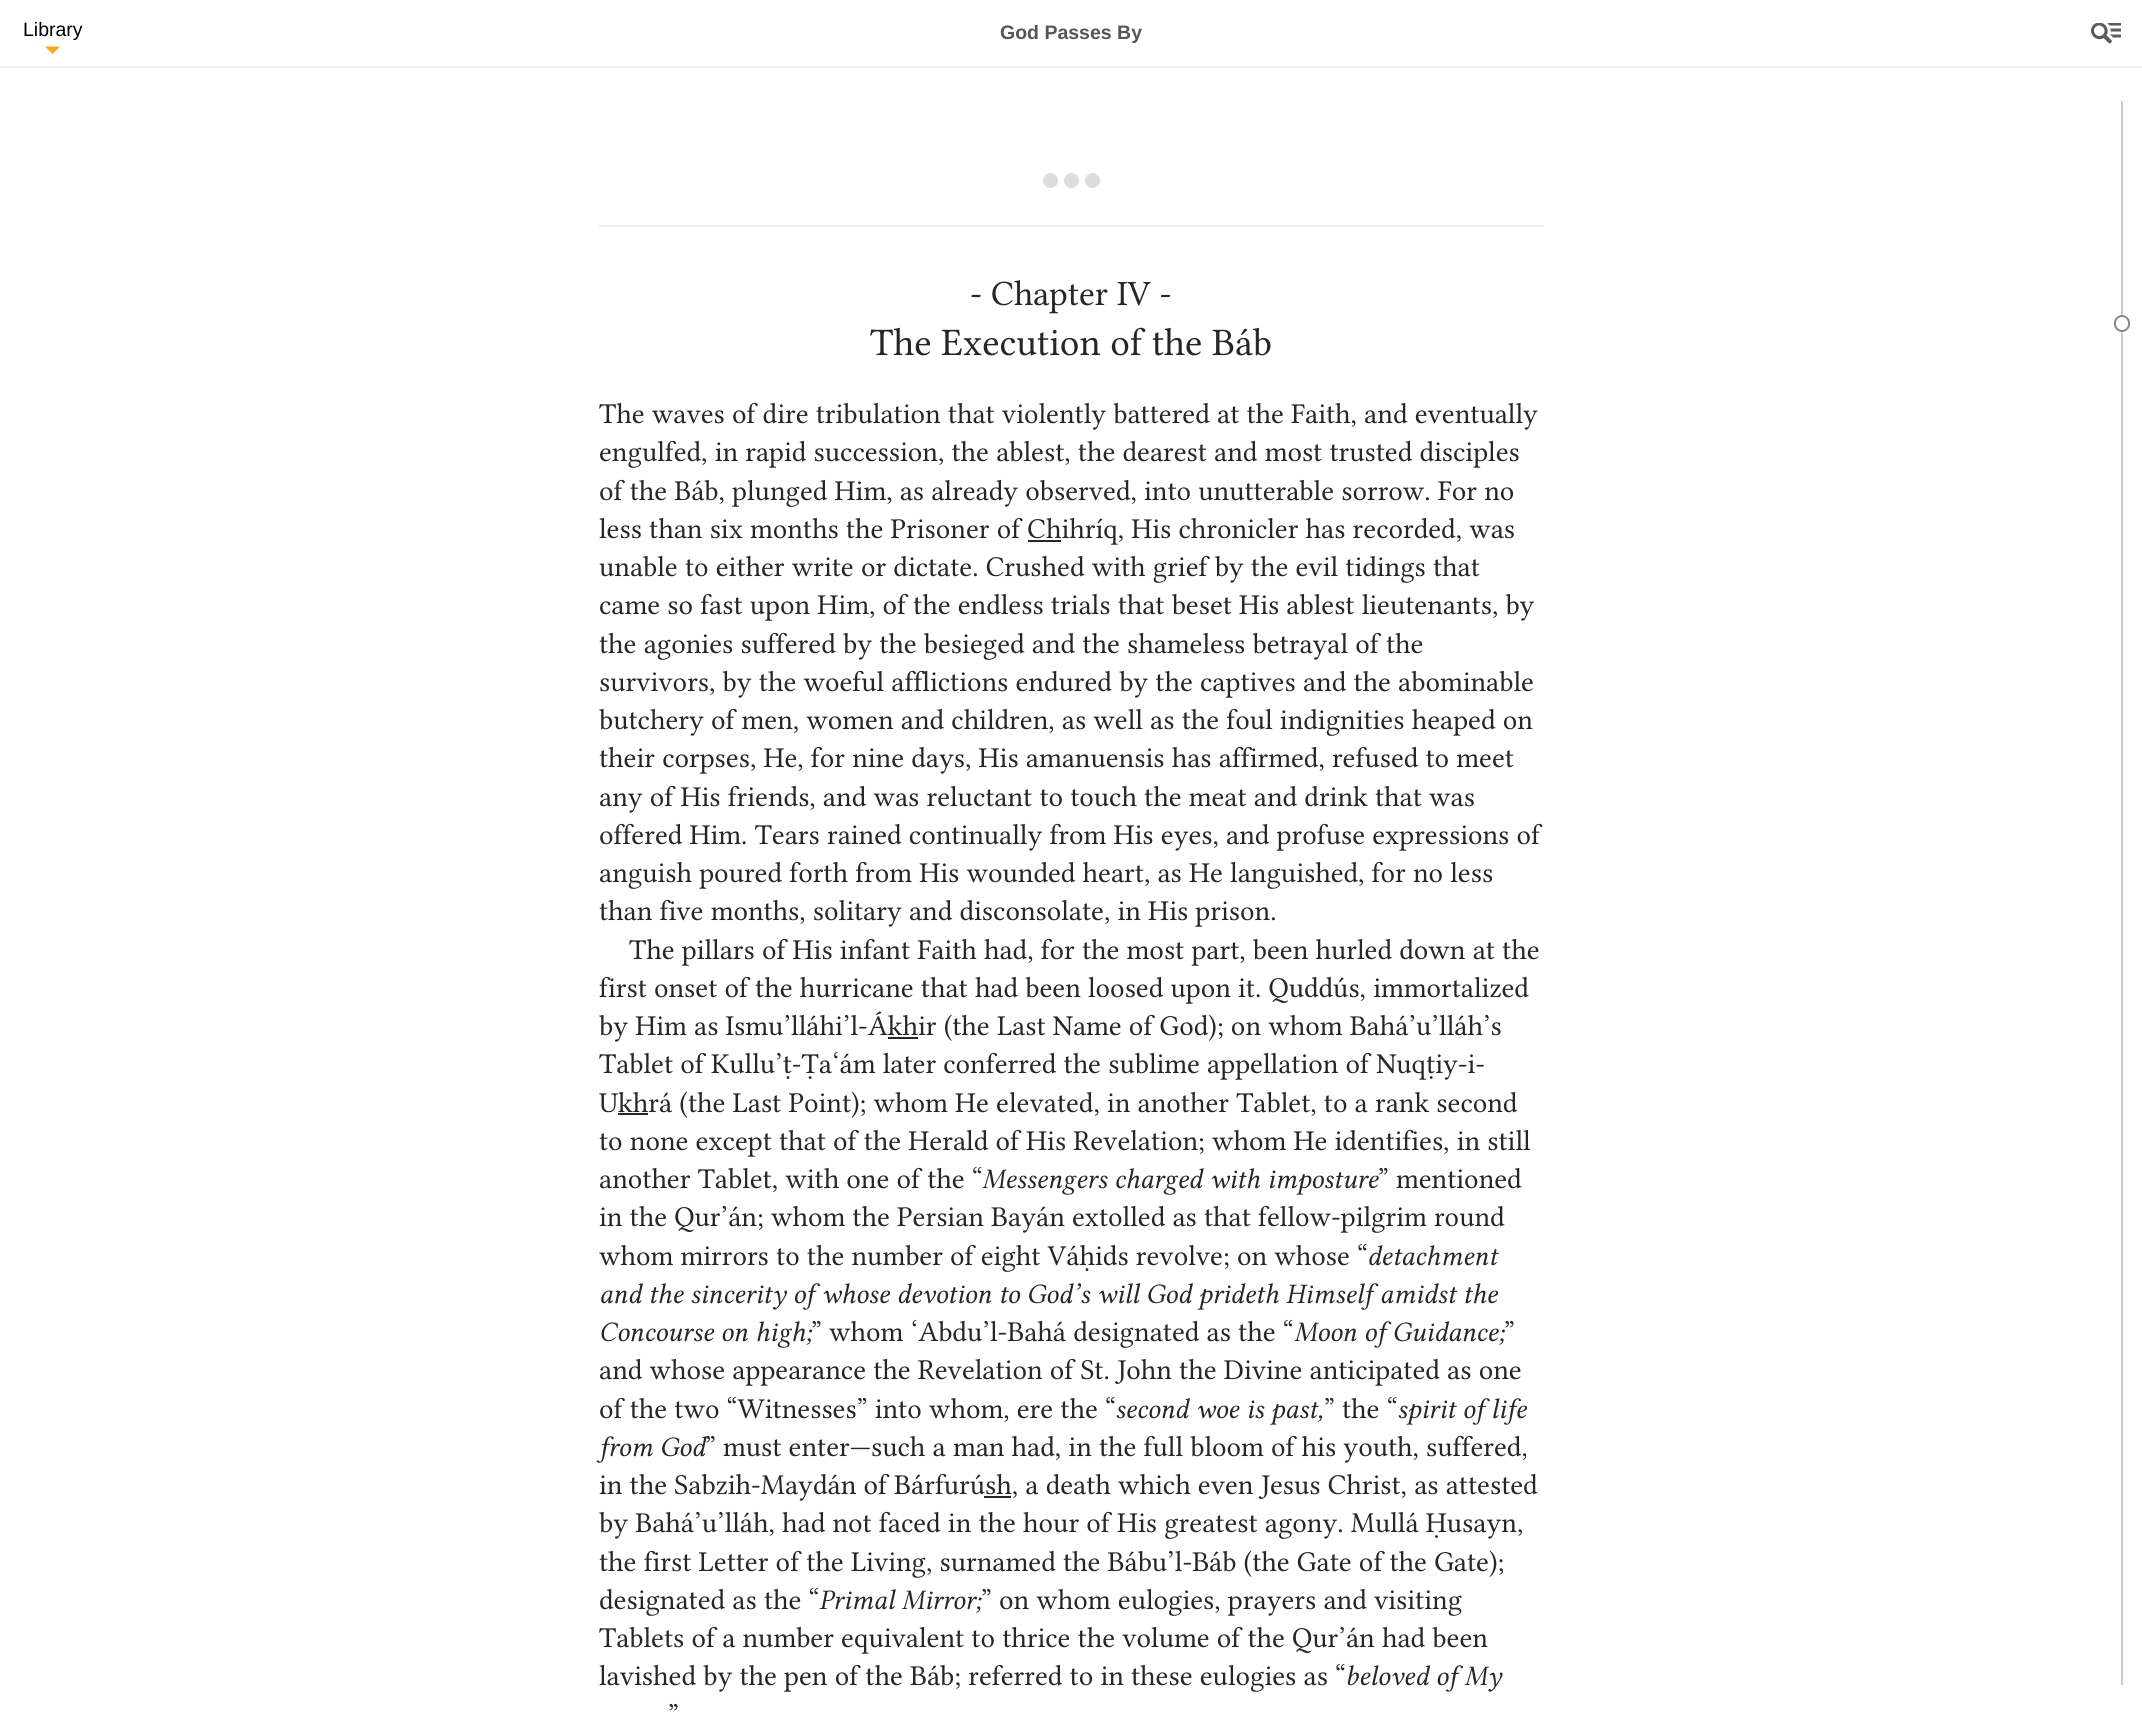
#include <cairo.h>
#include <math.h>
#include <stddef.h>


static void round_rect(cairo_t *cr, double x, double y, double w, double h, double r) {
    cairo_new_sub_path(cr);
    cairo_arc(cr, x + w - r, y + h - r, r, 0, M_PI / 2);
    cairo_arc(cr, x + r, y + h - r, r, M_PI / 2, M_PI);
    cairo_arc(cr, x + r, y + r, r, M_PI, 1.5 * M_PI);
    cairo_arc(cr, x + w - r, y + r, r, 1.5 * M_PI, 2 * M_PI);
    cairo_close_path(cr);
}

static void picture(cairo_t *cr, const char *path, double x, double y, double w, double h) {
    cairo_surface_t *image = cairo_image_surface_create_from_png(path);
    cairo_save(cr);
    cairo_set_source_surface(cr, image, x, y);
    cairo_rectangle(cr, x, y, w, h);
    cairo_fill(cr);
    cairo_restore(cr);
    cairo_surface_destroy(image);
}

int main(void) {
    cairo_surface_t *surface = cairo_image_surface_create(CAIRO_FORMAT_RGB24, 2142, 1717);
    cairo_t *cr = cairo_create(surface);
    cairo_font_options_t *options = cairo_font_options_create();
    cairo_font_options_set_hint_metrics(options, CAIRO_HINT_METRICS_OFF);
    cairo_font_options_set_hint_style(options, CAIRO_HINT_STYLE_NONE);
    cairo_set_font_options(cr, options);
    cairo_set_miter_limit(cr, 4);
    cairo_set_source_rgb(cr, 1, 1, 1);
    cairo_paint(cr);
    cairo_set_source_rgb(cr, 0.933, 0.933, 0.933);
    cairo_rectangle(cr, 0, 66, 2142, 2);
    cairo_fill(cr);
    cairo_select_font_face(cr, "Liberation Sans", CAIRO_FONT_SLANT_NORMAL, CAIRO_FONT_WEIGHT_NORMAL);
    cairo_set_font_size(cr, 19.5);
    cairo_set_source_rgb(cr, 0, 0, 0);
    cairo_move_to(cr, 23, 36);
    cairo_show_text(cr, "Library");
    cairo_set_source_rgb(cr, 0.961, 0.651, 0.137);
    cairo_new_path(cr);
    cairo_move_to(cr, 45, 46.5);
    cairo_line_to(cr, 60, 46.5);
    cairo_line_to(cr, 52.5, 54);
    cairo_close_path(cr);
    cairo_fill(cr);
    cairo_select_font_face(cr, "Liberation Sans", CAIRO_FONT_SLANT_NORMAL, CAIRO_FONT_WEIGHT_BOLD);
    cairo_set_source_rgb(cr, 0.337, 0.337, 0.337);
    cairo_move_to(cr, 1000, 39);
    cairo_show_text(cr, "God Passes By");
    picture(cr, "img1.png", 2091, 23, 30, 21);
    cairo_set_source_rgb(cr, 0.933, 0.933, 0.933);
    cairo_rectangle(cr, 599, 225, 945, 2);
    cairo_fill(cr);
    cairo_set_source_rgb(cr, 0.867, 0.867, 0.867);
    cairo_arc(cr, 1050.5, 180.5, 7.5, 0, 2 * M_PI);
    cairo_fill(cr);
    cairo_arc(cr, 1071.5, 180.5, 7.5, 0, 2 * M_PI);
    cairo_fill(cr);
    cairo_arc(cr, 1092.5, 180.5, 7.5, 0, 2 * M_PI);
    cairo_fill(cr);
    cairo_select_font_face(cr, "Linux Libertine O", CAIRO_FONT_SLANT_NORMAL, CAIRO_FONT_WEIGHT_NORMAL);
    cairo_set_font_size(cr, 31.5);
    cairo_set_source_rgb(cr, 0.149, 0.149, 0.149);
    cairo_move_to(cr, 970, 305);
    cairo_show_text(cr, "- Chapter IV -");
    cairo_set_font_size(cr, 34.5);
    cairo_move_to(cr, 870, 355);
    cairo_show_text(cr, "The Execution of the Báb");
    cairo_set_font_size(cr, 25.5);
    cairo_move_to(cr, 599, 423);
    cairo_show_text(cr, "The waves of dire tribulation that violently battered at the Faith, and eventually");
    cairo_move_to(cr, 599, 461);
    cairo_show_text(cr, "engulfed, in rapid succession, the ablest, the dearest and most trusted disciples");
    cairo_move_to(cr, 599, 500);
    cairo_show_text(cr, "of the Báb, plunged Him, as already observed, into unutterable sorrow. For no");
    cairo_move_to(cr, 599, 538);
    cairo_show_text(cr, "less than six months the Prisoner of Chihríq, His chronicler has recorded, was");
    cairo_rectangle(cr, 1028, 540, 33, 2);
    cairo_fill(cr);
    cairo_move_to(cr, 599, 576);
    cairo_show_text(cr, "unable to either write or dictate. Crushed with grief by the evil tidings that");
    cairo_move_to(cr, 599, 614);
    cairo_show_text(cr, "came so fast upon Him, of the endless trials that beset His ablest lieutenants, by");
    cairo_move_to(cr, 599, 653);
    cairo_show_text(cr, "the agonies suffered by the besieged and the shameless betrayal of the");
    cairo_move_to(cr, 599, 691);
    cairo_show_text(cr, "survivors, by the woeful afflictions endured by the captives and the abominable");
    cairo_move_to(cr, 599, 729);
    cairo_show_text(cr, "butchery of men, women and children, as well as the foul indignities heaped on");
    cairo_move_to(cr, 599, 767);
    cairo_show_text(cr, "their corpses, He, for nine days, His amanuensis has affirmed, refused to meet");
    cairo_move_to(cr, 599, 806);
    cairo_show_text(cr, "any of His friends, and was reluctant to touch the meat and drink that was");
    cairo_move_to(cr, 599, 844);
    cairo_show_text(cr, "offered Him. Tears rained continually from His eyes, and profuse expressions of");
    cairo_move_to(cr, 599, 882);
    cairo_show_text(cr, "anguish poured forth from His wounded heart, as He languished, for no less");
    cairo_move_to(cr, 599, 920);
    cairo_show_text(cr, "than five months, solitary and disconsolate, in His prison.");
    cairo_move_to(cr, 629, 959);
    cairo_show_text(cr, "The pillars of His infant Faith had, for the most part, been hurled down at the");
    cairo_move_to(cr, 599, 997);
    cairo_show_text(cr, "first onset of the hurricane that had been loosed upon it. Quddús, immortalized");
    cairo_move_to(cr, 599, 1035);
    cairo_show_text(cr, "by Him as Ismu’lláhi’l-Ákhir (the Last Name of God); on whom Bahá’u’lláh’s");
    cairo_rectangle(cr, 888, 1037, 30, 2);
    cairo_fill(cr);
    cairo_move_to(cr, 599, 1073);
    cairo_show_text(cr, "Tablet of Kullu’ṭ-Ṭa‘ám later conferred the sublime appellation of Nuqṭiy-i-");
    cairo_move_to(cr, 599, 1112);
    cairo_show_text(cr, "Ukhrá (the Last Point); whom He elevated, in another Tablet, to a rank second");
    cairo_rectangle(cr, 618, 1113, 30, 2);
    cairo_fill(cr);
    cairo_move_to(cr, 599, 1150);
    cairo_show_text(cr, "to none except that of the Herald of His Revelation; whom He identifies, in still");
    cairo_move_to(cr, 599, 1188);
    cairo_show_text(cr, "another Tablet, with one of the “");
    cairo_select_font_face(cr, "Linux Libertine O", CAIRO_FONT_SLANT_ITALIC, CAIRO_FONT_WEIGHT_NORMAL);
    cairo_move_to(cr, 982, 1188);
    cairo_show_text(cr, "Messengers charged with imposture");
    cairo_select_font_face(cr, "Linux Libertine O", CAIRO_FONT_SLANT_NORMAL, CAIRO_FONT_WEIGHT_NORMAL);
    cairo_move_to(cr, 1378, 1188);
    cairo_show_text(cr, "” mentioned");
    cairo_move_to(cr, 599, 1226);
    cairo_show_text(cr, "in the Qur’án; whom the Persian Bayán extolled as that fellow-pilgrim round");
    cairo_move_to(cr, 599, 1265);
    cairo_show_text(cr, "whom mirrors to the number of eight Váḥids revolve; on whose “");
    cairo_select_font_face(cr, "Linux Libertine O", CAIRO_FONT_SLANT_ITALIC, CAIRO_FONT_WEIGHT_NORMAL);
    cairo_move_to(cr, 1367, 1265);
    cairo_show_text(cr, "detachment");
    cairo_move_to(cr, 599, 1303);
    cairo_show_text(cr, "and the sincerity of whose devotion to God’s will God prideth Himself amidst the");
    cairo_move_to(cr, 599, 1341);
    cairo_show_text(cr, "Concourse on high;");
    cairo_select_font_face(cr, "Linux Libertine O", CAIRO_FONT_SLANT_NORMAL, CAIRO_FONT_WEIGHT_NORMAL);
    cairo_move_to(cr, 811, 1341);
    cairo_show_text(cr, "” whom ‘Abdu’l‑Bahá designated as the “");
    cairo_select_font_face(cr, "Linux Libertine O", CAIRO_FONT_SLANT_ITALIC, CAIRO_FONT_WEIGHT_NORMAL);
    cairo_move_to(cr, 1294, 1341);
    cairo_show_text(cr, "Moon of Guidance;");
    cairo_select_font_face(cr, "Linux Libertine O", CAIRO_FONT_SLANT_NORMAL, CAIRO_FONT_WEIGHT_NORMAL);
    cairo_move_to(cr, 1504, 1341);
    cairo_show_text(cr, "”");
    cairo_move_to(cr, 599, 1379);
    cairo_show_text(cr, "and whose appearance the Revelation of St. John the Divine anticipated as one");
    cairo_move_to(cr, 599, 1418);
    cairo_show_text(cr, "of the two “Witnesses” into whom, ere the “");
    cairo_select_font_face(cr, "Linux Libertine O", CAIRO_FONT_SLANT_ITALIC, CAIRO_FONT_WEIGHT_NORMAL);
    cairo_move_to(cr, 1115, 1418);
    cairo_show_text(cr, "second woe is past,");
    cairo_select_font_face(cr, "Linux Libertine O", CAIRO_FONT_SLANT_NORMAL, CAIRO_FONT_WEIGHT_NORMAL);
    cairo_move_to(cr, 1324, 1418);
    cairo_show_text(cr, "” the “");
    cairo_select_font_face(cr, "Linux Libertine O", CAIRO_FONT_SLANT_ITALIC, CAIRO_FONT_WEIGHT_NORMAL);
    cairo_move_to(cr, 1397, 1418);
    cairo_show_text(cr, "spirit of life");
    cairo_move_to(cr, 599, 1456);
    cairo_show_text(cr, "from God");
    cairo_select_font_face(cr, "Linux Libertine O", CAIRO_FONT_SLANT_NORMAL, CAIRO_FONT_WEIGHT_NORMAL);
    cairo_move_to(cr, 705, 1456);
    cairo_show_text(cr, "” must enter—such a man had, in the full bloom of his youth, suffered,");
    cairo_move_to(cr, 599, 1494);
    cairo_show_text(cr, "in the Sabzih-Maydán of Bárfurúsh, a death which even Jesus Christ, as attested");
    cairo_rectangle(cr, 984, 1496, 27, 2);
    cairo_fill(cr);
    cairo_move_to(cr, 599, 1532);
    cairo_show_text(cr, "by Bahá’u’lláh, had not faced in the hour of His greatest agony. Mullá Ḥusayn,");
    cairo_move_to(cr, 599, 1571);
    cairo_show_text(cr, "the first Letter of the Living, surnamed the Bábu’l-Báb (the Gate of the Gate);");
    cairo_move_to(cr, 599, 1609);
    cairo_show_text(cr, "designated as the “");
    cairo_select_font_face(cr, "Linux Libertine O", CAIRO_FONT_SLANT_ITALIC, CAIRO_FONT_WEIGHT_NORMAL);
    cairo_move_to(cr, 819, 1609);
    cairo_show_text(cr, "Primal Mirror;");
    cairo_select_font_face(cr, "Linux Libertine O", CAIRO_FONT_SLANT_NORMAL, CAIRO_FONT_WEIGHT_NORMAL);
    cairo_move_to(cr, 981, 1609);
    cairo_show_text(cr, "” on whom eulogies, prayers and visiting");
    cairo_move_to(cr, 599, 1647);
    cairo_show_text(cr, "Tablets of a number equivalent to thrice the volume of the Qur’án had been");
    cairo_move_to(cr, 599, 1685);
    cairo_show_text(cr, "lavished by the pen of the Báb; referred to in these eulogies as “");
    cairo_select_font_face(cr, "Linux Libertine O", CAIRO_FONT_SLANT_ITALIC, CAIRO_FONT_WEIGHT_NORMAL);
    cairo_move_to(cr, 1345, 1685);
    cairo_show_text(cr, "beloved of My");
    cairo_select_font_face(cr, "Linux Libertine O", CAIRO_FONT_SLANT_NORMAL, CAIRO_FONT_WEIGHT_NORMAL);
    cairo_move_to(cr, 668, 1724);
    cairo_show_text(cr, "”");
    cairo_set_source_rgb(cr, 0.8, 0.8, 0.8);
    cairo_rectangle(cr, 2121, 101, 2, 1584);
    cairo_fill(cr);
    cairo_set_source_rgb(cr, 1, 1, 1);
    round_rect(cr, 2115, 316, 14, 15, 7);
    cairo_fill_preserve(cr);
    cairo_set_source_rgb(cr, 0.533, 0.533, 0.533);
    cairo_stroke(cr);
    cairo_surface_write_to_png(surface, "page.png");
    cairo_font_options_destroy(options);
    cairo_destroy(cr);
    cairo_surface_destroy(surface);
    return 0;
}
